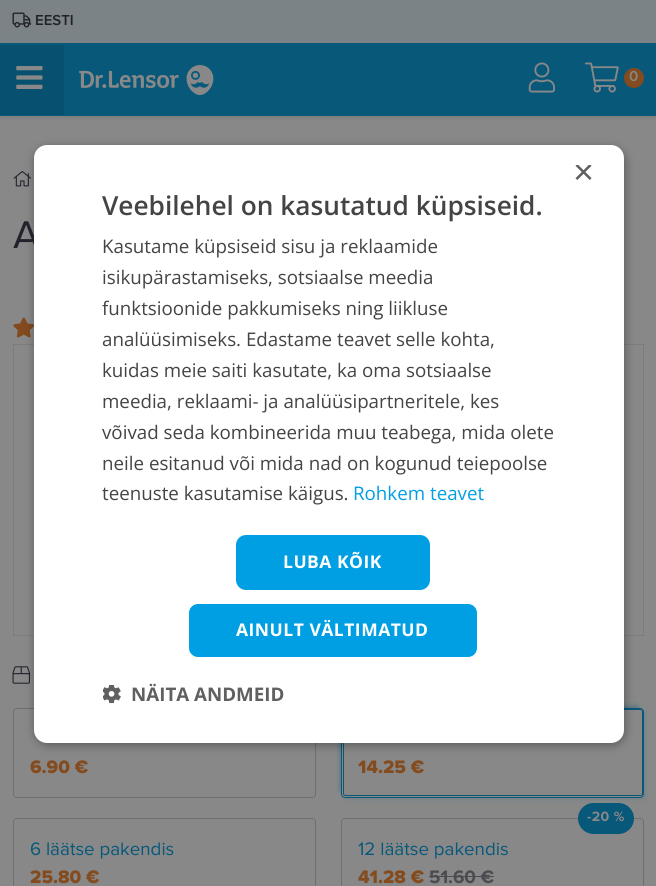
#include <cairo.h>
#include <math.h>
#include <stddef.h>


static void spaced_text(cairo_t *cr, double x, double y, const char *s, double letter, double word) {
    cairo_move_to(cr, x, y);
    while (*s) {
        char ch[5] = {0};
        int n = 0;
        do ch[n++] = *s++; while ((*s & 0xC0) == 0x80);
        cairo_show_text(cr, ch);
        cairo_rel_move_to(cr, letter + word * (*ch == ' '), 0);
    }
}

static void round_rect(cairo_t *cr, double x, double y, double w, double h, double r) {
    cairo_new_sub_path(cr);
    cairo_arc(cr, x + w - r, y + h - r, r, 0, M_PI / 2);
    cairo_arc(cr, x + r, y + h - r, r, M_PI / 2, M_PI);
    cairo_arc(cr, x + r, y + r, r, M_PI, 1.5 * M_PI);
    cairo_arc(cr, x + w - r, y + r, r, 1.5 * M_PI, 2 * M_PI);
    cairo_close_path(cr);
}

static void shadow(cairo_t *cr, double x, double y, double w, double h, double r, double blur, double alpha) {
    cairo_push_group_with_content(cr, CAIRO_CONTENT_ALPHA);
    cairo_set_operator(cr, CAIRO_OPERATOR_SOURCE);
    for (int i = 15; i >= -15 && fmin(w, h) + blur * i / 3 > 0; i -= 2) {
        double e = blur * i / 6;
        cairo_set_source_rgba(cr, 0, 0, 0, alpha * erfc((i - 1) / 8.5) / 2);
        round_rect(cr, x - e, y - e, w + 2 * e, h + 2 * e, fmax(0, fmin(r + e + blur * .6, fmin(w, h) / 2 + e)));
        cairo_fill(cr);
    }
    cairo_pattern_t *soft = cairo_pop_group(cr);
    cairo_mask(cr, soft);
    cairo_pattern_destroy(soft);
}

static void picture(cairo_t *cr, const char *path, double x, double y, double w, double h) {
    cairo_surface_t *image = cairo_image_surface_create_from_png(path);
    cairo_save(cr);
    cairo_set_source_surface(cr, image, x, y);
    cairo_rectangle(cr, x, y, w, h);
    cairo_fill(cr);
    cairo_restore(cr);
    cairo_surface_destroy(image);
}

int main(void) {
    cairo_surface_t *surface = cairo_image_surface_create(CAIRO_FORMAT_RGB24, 656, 886);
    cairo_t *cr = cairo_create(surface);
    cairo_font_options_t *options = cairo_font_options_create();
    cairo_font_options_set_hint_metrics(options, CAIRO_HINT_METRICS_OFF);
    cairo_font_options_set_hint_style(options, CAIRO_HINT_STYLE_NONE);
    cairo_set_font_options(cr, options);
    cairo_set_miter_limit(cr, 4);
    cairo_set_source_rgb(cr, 0.533, 0.533, 0.533);
    cairo_paint(cr);
    cairo_set_source_rgb(cr, 0.09, 0.09, 0.082);
    shadow(cr, 0, 1, 656, 117, 0, 2, 0.1);
    cairo_set_source_rgb(cr, 0.486, 0.514, 0.529);
    cairo_rectangle(cr, 0, 0, 656, 43);
    cairo_fill(cr);
    picture(cr, "img1.png", 12, 12, 20, 16);
    cairo_select_font_face(cr, "Proxima Nova SemiBold", CAIRO_FONT_SLANT_NORMAL, CAIRO_FONT_WEIGHT_NORMAL);
    cairo_set_font_size(cr, 15);
    cairo_set_source_rgb(cr, 0.133, 0.133, 0.173);
    cairo_move_to(cr, 35, 25);
    cairo_show_text(cr, "EESTI");
    cairo_set_source_rgb(cr, 0.035, 0.345, 0.478);
    cairo_rectangle(cr, 0, 43, 656, 73);
    cairo_fill(cr);
    cairo_set_source_rgb(cr, 0.035, 0.314, 0.435);
    cairo_rectangle(cr, 0, 45, 64, 70);
    cairo_fill(cr);
    picture(cr, "img2.png", 16, 66, 27, 23);
    picture(cr, "img3.png", 79, 65, 135, 30);
    picture(cr, "img4.png", 528, 62, 27, 31);
    picture(cr, "img5.png", 585, 62, 34, 31);
    cairo_set_source_rgb(cr, 0.514, 0.294, 0.118);
    cairo_arc(cr, 634, 78, 10, 0, 2 * M_PI);
    cairo_fill(cr);
    cairo_set_source_rgb(cr, 0.533, 0.533, 0.533);
    cairo_move_to(cr, 629, 81);
    cairo_show_text(cr, "0");
    picture(cr, "img7.png", 13, 171, 18, 16);
    picture(cr, "img8.png", 13, 317, 21, 21);
    cairo_rectangle(cr, 13.5, 344.5, 630, 291);
    cairo_set_source_rgb(cr, 0.486, 0.486, 0.486);
    cairo_set_line_width(cr, 1);
    cairo_stroke(cr);
    picture(cr, "img9.png", 12, 666, 18, 18);
    round_rect(cr, 13.5, 708.5, 302, 89, 3.5);
    cairo_set_source_rgb(cr, 0.435, 0.435, 0.435);
    cairo_stroke(cr);
    cairo_save(cr);
    cairo_set_fill_rule(cr, CAIRO_FILL_RULE_EVEN_ODD);
    cairo_new_path(cr);
    cairo_move_to(cr, 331, 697);
    cairo_line_to(cr, 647, 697);
    cairo_line_to(cr, 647, 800);
    cairo_line_to(cr, 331, 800);
    cairo_close_path(cr);
    cairo_move_to(cr, 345, 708);
    cairo_line_to(cr, 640, 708);
    cairo_curve_to(cr, 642, 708, 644, 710, 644, 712);
    cairo_line_to(cr, 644, 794);
    cairo_curve_to(cr, 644, 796, 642, 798, 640, 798);
    cairo_line_to(cr, 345, 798);
    cairo_curve_to(cr, 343, 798, 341, 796, 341, 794);
    cairo_line_to(cr, 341, 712);
    cairo_curve_to(cr, 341, 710, 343, 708, 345, 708);
    cairo_close_path(cr);
    cairo_clip(cr);
    cairo_set_source_rgb(cr, 0.035, 0.345, 0.478);
    shadow(cr, 340, 706, 298, 85, 1, 2.5, 0.4);
    cairo_restore(cr);
    cairo_save(cr);
    cairo_set_fill_rule(cr, CAIRO_FILL_RULE_EVEN_ODD);
    cairo_new_path(cr);
    cairo_move_to(cr, 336, 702);
    cairo_line_to(cr, 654, 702);
    cairo_line_to(cr, 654, 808);
    cairo_line_to(cr, 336, 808);
    cairo_close_path(cr);
    cairo_move_to(cr, 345, 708);
    cairo_line_to(cr, 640, 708);
    cairo_curve_to(cr, 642, 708, 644, 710, 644, 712);
    cairo_line_to(cr, 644, 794);
    cairo_curve_to(cr, 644, 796, 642, 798, 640, 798);
    cairo_line_to(cr, 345, 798);
    cairo_curve_to(cr, 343, 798, 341, 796, 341, 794);
    cairo_line_to(cr, 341, 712);
    cairo_curve_to(cr, 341, 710, 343, 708, 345, 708);
    cairo_close_path(cr);
    cairo_clip(cr);
    cairo_set_source_rgb(cr, 0.035, 0.345, 0.478);
    shadow(cr, 345, 711, 300, 88, 2.5, 2.5, 0.2);
    cairo_restore(cr);
    round_rect(cr, 343.5, 709.5, 299, 86, 2);
    cairo_set_source_rgb(cr, 0.035, 0.345, 0.478);
    cairo_stroke(cr);
    round_rect(cr, 341.5, 708.5, 302, 89, 3.5);
    cairo_stroke(cr);
    cairo_set_source_rgb(cr, 0, 0, 0);
    shadow(cr, 35, 148, 590, 597, 13, 5, 0.35);
    cairo_select_font_face(cr, "Proxima Nova", CAIRO_FONT_SLANT_NORMAL, CAIRO_FONT_WEIGHT_NORMAL);
    cairo_set_font_size(cr, 40);
    cairo_set_source_rgb(cr, 0.133, 0.133, 0.173);
    cairo_move_to(cr, 13, 248);
    cairo_show_text(cr, "A");
    cairo_set_source_rgb(cr, 1, 1, 1);
    round_rect(cr, 34, 145, 590, 598, 13);
    cairo_fill(cr);
    cairo_save(cr);
    cairo_rectangle(cr, 574, 165, 19, 19);
    cairo_clip(cr);
    cairo_select_font_face(cr, "Liberation Sans", CAIRO_FONT_SLANT_NORMAL, CAIRO_FONT_WEIGHT_NORMAL);
    cairo_set_font_size(cr, 36);
    cairo_set_source_rgb(cr, 0.376, 0.376, 0.376);
    cairo_move_to(cr, 573, 184);
    cairo_show_text(cr, "×");
    cairo_restore(cr);
    cairo_select_font_face(cr, "Open Sans SemiBold", CAIRO_FONT_SLANT_NORMAL, CAIRO_FONT_WEIGHT_NORMAL);
    cairo_set_font_size(cr, 26.25);
    cairo_set_source_rgb(cr, 0.267, 0.267, 0.267);
    cairo_move_to(cr, 102, 215);
    cairo_show_text(cr, "Veebilehel on kasutatud küpsiseid.");
    cairo_select_font_face(cr, "Open Sans", CAIRO_FONT_SLANT_NORMAL, CAIRO_FONT_WEIGHT_NORMAL);
    cairo_set_font_size(cr, 18.75);
    cairo_move_to(cr, 102, 253);
    cairo_show_text(cr, "Kasutame küpsiseid sisu ja reklaamide");
    cairo_move_to(cr, 102, 284);
    cairo_show_text(cr, "isikupärastamiseks, sotsiaalse meedia");
    cairo_move_to(cr, 102, 315);
    cairo_show_text(cr, "funktsioonide pakkumiseks ning liikluse");
    cairo_move_to(cr, 102, 346);
    cairo_show_text(cr, "analüüsimiseks. Edastame teavet selle kohta,");
    cairo_move_to(cr, 102, 377);
    cairo_show_text(cr, "kuidas meie saiti kasutate, ka oma sotsiaalse");
    cairo_move_to(cr, 102, 408);
    cairo_show_text(cr, "meedia, reklaami- ja analüüsipartneritele, kes");
    cairo_move_to(cr, 102, 439);
    cairo_show_text(cr, "võivad seda kombineerida muu teabega, mida olete");
    cairo_move_to(cr, 102, 470);
    cairo_show_text(cr, "neile esitanud või mida nad on kogunud teiepoolse");
    cairo_move_to(cr, 102, 500);
    cairo_show_text(cr, "teenuste kasutamise käigus.");
    cairo_set_source_rgb(cr, 0, 0.624, 0.89);
    cairo_move_to(cr, 353, 500);
    cairo_show_text(cr, "Rohkem teavet");
    round_rect(cr, 236, 535, 194, 55, 10);
    cairo_fill(cr);
    cairo_select_font_face(cr, "Open Sans", CAIRO_FONT_SLANT_NORMAL, CAIRO_FONT_WEIGHT_BOLD);
    cairo_set_font_size(cr, 17.5);
    cairo_set_source_rgb(cr, 1, 1, 1);
    spaced_text(cr, 283, 568, "LUBA KÕIK", 0.5, 0);
    cairo_set_source_rgb(cr, 0, 0.624, 0.89);
    round_rect(cr, 188.5, 603.5, 289, 54, 9.5);
    cairo_fill_preserve(cr);
    cairo_set_source_rgb(cr, 1, 1, 1);
    cairo_stroke(cr);
    spaced_text(cr, 236, 636, "AINULT VÄLTIMATUD", 0.5, 0);
    picture(cr, "img6.png", 103, 685, 18, 19);
    cairo_set_font_size(cr, 18.75);
    cairo_set_source_rgb(cr, 0.376, 0.376, 0.376);
    cairo_move_to(cr, 131, 701);
    cairo_show_text(cr, "NÄITA ANDMEID");
    cairo_select_font_face(cr, "Proxima Nova ExtraBold", CAIRO_FONT_SLANT_NORMAL, CAIRO_FONT_WEIGHT_NORMAL);
    cairo_set_source_rgb(cr, 0.514, 0.294, 0.118);
    cairo_move_to(cr, 30, 773);
    cairo_show_text(cr, "6.90 €");
    cairo_move_to(cr, 358, 773);
    cairo_show_text(cr, "14.25 €");
    round_rect(cr, 13.5, 818.5, 302, 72, 3.5);
    cairo_set_source_rgb(cr, 0.435, 0.435, 0.435);
    cairo_stroke(cr);
    cairo_select_font_face(cr, "Proxima Nova", CAIRO_FONT_SLANT_NORMAL, CAIRO_FONT_WEIGHT_NORMAL);
    cairo_set_source_rgb(cr, 0.035, 0.345, 0.478);
    cairo_move_to(cr, 30, 855);
    cairo_show_text(cr, "6 läätse pakendis");
    cairo_select_font_face(cr, "Proxima Nova ExtraBold", CAIRO_FONT_SLANT_NORMAL, CAIRO_FONT_WEIGHT_NORMAL);
    cairo_set_source_rgb(cr, 0.514, 0.294, 0.118);
    cairo_move_to(cr, 30, 883);
    cairo_show_text(cr, "25.80 €");
    round_rect(cr, 341.5, 818.5, 302, 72, 3.5);
    cairo_set_source_rgb(cr, 0.435, 0.435, 0.435);
    cairo_stroke(cr);
    cairo_set_source_rgb(cr, 0.035, 0.345, 0.478);
    round_rect(cr, 578, 803, 56, 31, 15.5);
    cairo_fill(cr);
    cairo_select_font_face(cr, "Proxima Nova", CAIRO_FONT_SLANT_NORMAL, CAIRO_FONT_WEIGHT_BOLD);
    cairo_set_font_size(cr, 14);
    cairo_set_source_rgb(cr, 0.533, 0.533, 0.533);
    spaced_text(cr, 587, 821, "-20 %", 0.5, 0);
    cairo_select_font_face(cr, "Proxima Nova", CAIRO_FONT_SLANT_NORMAL, CAIRO_FONT_WEIGHT_NORMAL);
    cairo_set_font_size(cr, 18.75);
    cairo_set_source_rgb(cr, 0.035, 0.345, 0.478);
    cairo_move_to(cr, 358, 855);
    cairo_show_text(cr, "12 läätse pakendis");
    cairo_select_font_face(cr, "Proxima Nova ExtraBold", CAIRO_FONT_SLANT_NORMAL, CAIRO_FONT_WEIGHT_NORMAL);
    cairo_set_source_rgb(cr, 0.514, 0.294, 0.118);
    cairo_move_to(cr, 358, 883);
    cairo_show_text(cr, "41.28 €");
    cairo_select_font_face(cr, "Proxima Nova", CAIRO_FONT_SLANT_NORMAL, CAIRO_FONT_WEIGHT_BOLD);
    cairo_set_source_rgb(cr, 0.294, 0.294, 0.318);
    cairo_move_to(cr, 429, 883);
    cairo_show_text(cr, "51.60 €");
    cairo_rectangle(cr, 429, 876, 65, 1);
    cairo_fill(cr);
    cairo_surface_write_to_png(surface, "page.png");
    cairo_font_options_destroy(options);
    cairo_destroy(cr);
    cairo_surface_destroy(surface);
    return 0;
}
